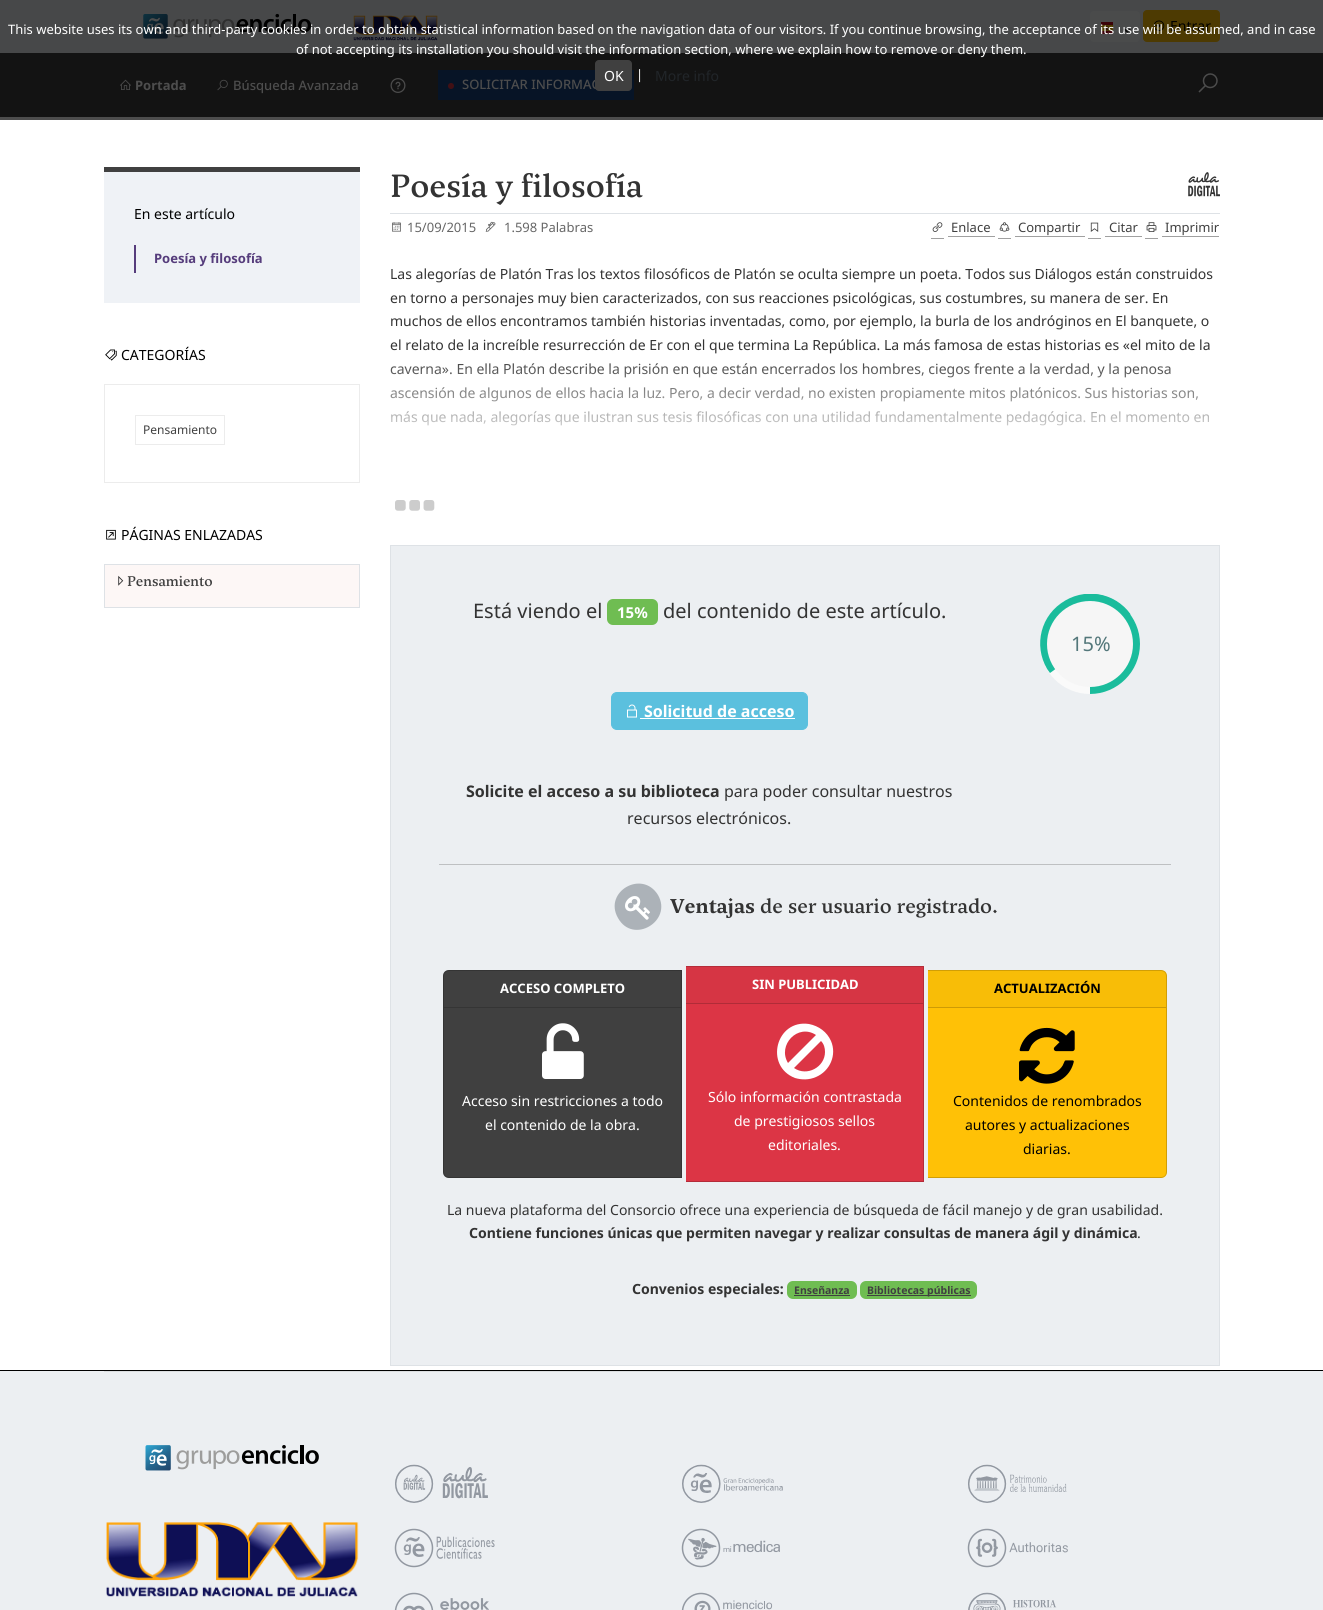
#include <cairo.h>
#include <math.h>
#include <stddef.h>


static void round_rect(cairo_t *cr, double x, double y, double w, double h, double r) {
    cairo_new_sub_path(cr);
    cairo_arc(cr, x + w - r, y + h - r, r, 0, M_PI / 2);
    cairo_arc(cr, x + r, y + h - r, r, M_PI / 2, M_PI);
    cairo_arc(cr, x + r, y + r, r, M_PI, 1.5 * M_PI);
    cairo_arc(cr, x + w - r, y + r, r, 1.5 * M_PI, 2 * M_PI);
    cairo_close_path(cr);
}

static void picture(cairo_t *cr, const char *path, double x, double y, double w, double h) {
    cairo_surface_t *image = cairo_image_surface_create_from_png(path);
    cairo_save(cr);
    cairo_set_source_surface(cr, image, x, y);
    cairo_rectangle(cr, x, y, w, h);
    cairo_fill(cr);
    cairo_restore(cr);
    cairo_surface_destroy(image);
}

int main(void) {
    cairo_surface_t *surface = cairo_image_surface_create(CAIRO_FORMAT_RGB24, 1323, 1610);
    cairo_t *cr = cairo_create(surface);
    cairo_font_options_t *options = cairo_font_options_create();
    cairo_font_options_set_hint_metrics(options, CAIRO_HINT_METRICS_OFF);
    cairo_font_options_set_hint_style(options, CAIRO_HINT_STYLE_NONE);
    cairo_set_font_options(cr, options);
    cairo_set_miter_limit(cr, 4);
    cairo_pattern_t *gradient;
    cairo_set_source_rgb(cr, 1, 1, 1);
    cairo_paint(cr);
    cairo_set_source_rgb(cr, 0.302, 0.302, 0.302);
    cairo_rectangle(cr, 0, 117, 1323, 3);
    cairo_fill(cr);
    cairo_set_source_rgb(cr, 0.278, 0.282, 0.286);
    cairo_rectangle(cr, 0, 0, 1323, 53);
    cairo_fill(cr);
    picture(cr, "img1.png", 143, 13, 168, 26);
    picture(cr, "img2.png", 353, 15, 85, 26);
    cairo_set_source_rgb(cr, 0.29, 0.294, 0.294);
    round_rect(cr, 1090, 11, 50, 31, 4);
    cairo_fill(cr);
    picture(cr, "img3.png", 1101, 22, 12, 12);
    cairo_set_source_rgb(cr, 0.059, 0.059, 0.059);
    cairo_new_path(cr);
    cairo_move_to(cr, 1123, 29);
    cairo_line_to(cr, 1131, 29);
    cairo_line_to(cr, 1127, 33);
    cairo_close_path(cr);
    cairo_fill(cr);
    cairo_set_source_rgb(cr, 0.302, 0.227, 0.008);
    round_rect(cr, 1143.5, 10.5, 76, 31, 3.5);
    cairo_fill_preserve(cr);
    cairo_set_line_width(cr, 1);
    cairo_stroke(cr);
    picture(cr, "img4.png", 1153, 20, 12, 11);
    cairo_select_font_face(cr, "Noto Sans", CAIRO_FONT_SLANT_NORMAL, CAIRO_FONT_WEIGHT_NORMAL);
    cairo_set_font_size(cr, 14);
    cairo_set_source_rgb(cr, 0, 0, 0);
    cairo_move_to(cr, 1170, 31);
    cairo_show_text(cr, "Entrar");
    cairo_set_font_size(cr, 13);
    cairo_set_source_rgb(cr, 1, 1, 1);
    cairo_move_to(cr, 8, 34);
    cairo_show_text(cr, "This website uses its own and third-party cookies in order to obtain statistical information based on the navigation data of our visitors. If you continue browsing, the acceptance of its use will be assumed, and in case");
    cairo_set_source_rgb(cr, 0.075, 0.075, 0.075);
    cairo_rectangle(cr, 0, 53, 1323, 64);
    cairo_fill(cr);
    cairo_set_source_rgb(cr, 1, 1, 1);
    cairo_move_to(cr, 296, 54);
    cairo_show_text(cr, "of not accepting its installation you should visit the information section, where we explain how to remove or deny them.");
    cairo_set_source_rgb(cr, 0.031, 0.082, 0.149);
    cairo_rectangle(cr, 438, 70, 196, 30);
    cairo_fill(cr);
    cairo_select_font_face(cr, "Noto Sans Medium", CAIRO_FONT_SLANT_NORMAL, CAIRO_FONT_WEIGHT_NORMAL);
    cairo_set_source_rgb(cr, 0.302, 0.302, 0.302);
    cairo_move_to(cr, 462, 89);
    cairo_show_text(cr, "SOLICITAR INFORMAC");
    cairo_set_source_rgb(cr, 0.251, 0.251, 0.251);
    round_rect(cr, 595.5, 60.5, 36, 30, 3.5);
    cairo_fill_preserve(cr);
    cairo_stroke(cr);
    cairo_select_font_face(cr, "Noto Sans", CAIRO_FONT_SLANT_NORMAL, CAIRO_FONT_WEIGHT_NORMAL);
    cairo_set_font_size(cr, 14);
    cairo_set_source_rgb(cr, 1, 1, 1);
    cairo_move_to(cr, 604, 81);
    cairo_show_text(cr, "OK");
    cairo_set_font_size(cr, 13);
    cairo_move_to(cr, 636, 79);
    cairo_show_text(cr, "|");
    cairo_set_font_size(cr, 14);
    cairo_set_source_rgb(cr, 0.129, 0.145, 0.161);
    cairo_move_to(cr, 655, 81);
    cairo_show_text(cr, "More info");
    picture(cr, "img5.png", 120, 79, 11, 11);
    cairo_select_font_face(cr, "Noto Sans", CAIRO_FONT_SLANT_NORMAL, CAIRO_FONT_WEIGHT_BOLD);
    cairo_set_font_size(cr, 13);
    cairo_set_source_rgb(cr, 0.302, 0.302, 0.302);
    cairo_move_to(cr, 135, 90);
    cairo_show_text(cr, "Portada");
    picture(cr, "img6.png", 217, 79, 11, 12);
    cairo_select_font_face(cr, "Noto Sans Medium", CAIRO_FONT_SLANT_NORMAL, CAIRO_FONT_WEIGHT_NORMAL);
    cairo_move_to(cr, 233, 90);
    cairo_show_text(cr, "Búsqueda Avanzada");
    picture(cr, "img7.png", 390, 78, 16, 15);
    cairo_set_source_rgb(cr, 0.259, 0.063, 0.082);
    cairo_arc(cr, 451, 86, 3, 0, 2 * M_PI);
    cairo_fill(cr);
    picture(cr, "img8.png", 1198, 73, 20, 20);
    cairo_set_source_rgb(cr, 0.937, 0.949, 0.961);
    cairo_rectangle(cr, 104, 172, 256, 131);
    cairo_fill(cr);
    cairo_set_source_rgb(cr, 0.251, 0.251, 0.251);
    cairo_rectangle(cr, 104, 167, 256, 5);
    cairo_fill(cr);
    cairo_select_font_face(cr, "Noto Sans", CAIRO_FONT_SLANT_NORMAL, CAIRO_FONT_WEIGHT_NORMAL);
    cairo_set_font_size(cr, 14);
    cairo_set_source_rgb(cr, 0, 0, 0);
    cairo_move_to(cr, 134, 219);
    cairo_show_text(cr, "En este artículo");
    cairo_set_source_rgb(cr, 0.337, 0.239, 0.486);
    cairo_rectangle(cr, 134, 245, 2, 28);
    cairo_fill(cr);
    cairo_select_font_face(cr, "Noto Sans", CAIRO_FONT_SLANT_NORMAL, CAIRO_FONT_WEIGHT_BOLD);
    cairo_set_font_size(cr, 13);
    cairo_move_to(cr, 154, 263);
    cairo_show_text(cr, "Poesía y filosofía");
    picture(cr, "img9.png", 105, 349, 12, 12);
    cairo_select_font_face(cr, "Noto Sans", CAIRO_FONT_SLANT_NORMAL, CAIRO_FONT_WEIGHT_NORMAL);
    cairo_set_font_size(cr, 14);
    cairo_set_source_rgb(cr, 0, 0, 0);
    cairo_move_to(cr, 121, 360);
    cairo_show_text(cr, "CATEGORÍAS");
    cairo_rectangle(cr, 104.5, 384.5, 255, 98);
    cairo_set_source_rgb(cr, 0.922, 0.922, 0.922);
    cairo_stroke(cr);
    cairo_rectangle(cr, 135.5, 415.5, 89, 29);
    cairo_stroke(cr);
    cairo_set_font_size(cr, 12);
    cairo_set_source_rgb(cr, 0.251, 0.251, 0.251);
    cairo_move_to(cr, 143, 434);
    cairo_show_text(cr, "Pensamiento");
    picture(cr, "img10.png", 106, 529, 10, 11);
    cairo_set_font_size(cr, 14);
    cairo_set_source_rgb(cr, 0, 0, 0);
    cairo_move_to(cr, 121, 540);
    cairo_show_text(cr, "PÁGINAS ENLAZADAS");
    cairo_set_source_rgb(cr, 0.992, 0.965, 0.961);
    cairo_rectangle(cr, 104.5, 564.5, 255, 43);
    cairo_fill_preserve(cr);
    cairo_set_source_rgb(cr, 0.871, 0.886, 0.902);
    cairo_stroke(cr);
    picture(cr, "img11.png", 118, 575, 6, 11);
    cairo_select_font_face(cr, "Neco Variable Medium", CAIRO_FONT_SLANT_NORMAL, CAIRO_FONT_WEIGHT_NORMAL);
    cairo_set_source_rgb(cr, 0.251, 0.251, 0.251);
    cairo_move_to(cr, 127, 586);
    cairo_show_text(cr, "Pensamiento");
    cairo_set_font_size(cr, 32);
    cairo_set_source_rgb(cr, 0.2, 0.2, 0.2);
    cairo_move_to(cr, 390, 197);
    cairo_show_text(cr, "Poesía y filosofía");
    picture(cr, "img12.png", 1188, 172, 32, 25);
    cairo_set_source_rgb(cr, 0.871, 0.886, 0.902);
    cairo_rectangle(cr, 390, 213, 830, 1);
    cairo_fill(cr);
    picture(cr, "img13.png", 392, 222, 9, 10);
    cairo_select_font_face(cr, "Noto Sans", CAIRO_FONT_SLANT_NORMAL, CAIRO_FONT_WEIGHT_NORMAL);
    cairo_set_font_size(cr, 13);
    cairo_set_source_rgb(cr, 0.4, 0.4, 0.4);
    cairo_move_to(cr, 407, 232);
    cairo_show_text(cr, "15/09/2015");
    picture(cr, "img14.png", 485, 221, 11, 11);
    cairo_move_to(cr, 504, 232);
    cairo_show_text(cr, "1.598 Palabras");
    cairo_set_source_rgb(cr, 0.627, 0.627, 0.627);
    cairo_rectangle(cr, 931, 238, 13, 1);
    cairo_fill(cr);
    cairo_rectangle(cr, 948, 236, 47, 1);
    cairo_fill(cr);
    picture(cr, "img15.png", 932, 222, 11, 10);
    cairo_set_source_rgb(cr, 0.251, 0.251, 0.251);
    cairo_move_to(cr, 951, 232);
    cairo_show_text(cr, "Enlace");
    cairo_set_source_rgb(cr, 0.627, 0.627, 0.627);
    cairo_rectangle(cr, 998, 238, 13, 1);
    cairo_fill(cr);
    cairo_rectangle(cr, 1015, 236, 70, 1);
    cairo_fill(cr);
    picture(cr, "img16.png", 999, 222, 11, 10);
    cairo_set_source_rgb(cr, 0.251, 0.251, 0.251);
    cairo_move_to(cr, 1018, 232);
    cairo_show_text(cr, "Compartir");
    cairo_set_source_rgb(cr, 0.627, 0.627, 0.627);
    cairo_rectangle(cr, 1088, 238, 13, 1);
    cairo_fill(cr);
    cairo_rectangle(cr, 1105, 236, 37, 1);
    cairo_fill(cr);
    picture(cr, "img17.png", 1090, 222, 9, 10);
    cairo_set_source_rgb(cr, 0.251, 0.251, 0.251);
    cairo_move_to(cr, 1109, 232);
    cairo_show_text(cr, "Citar");
    cairo_set_source_rgb(cr, 0.627, 0.627, 0.627);
    cairo_rectangle(cr, 1145, 238, 13, 1);
    cairo_fill(cr);
    cairo_rectangle(cr, 1162, 236, 57, 1);
    cairo_fill(cr);
    picture(cr, "img18.png", 1146, 222, 11, 10);
    cairo_set_source_rgb(cr, 0.251, 0.251, 0.251);
    cairo_move_to(cr, 1165, 232);
    cairo_show_text(cr, "Imprimir");
    cairo_set_font_size(cr, 14);
    cairo_set_source_rgb(cr, 0.2, 0.2, 0.2);
    cairo_move_to(cr, 390, 279);
    cairo_show_text(cr, "Las alegorías de Platón Tras los textos filosóficos de Platón se oculta siempre un poeta. Todos sus Diálogos están construidos");
    cairo_move_to(cr, 390, 303);
    cairo_show_text(cr, "en torno a personajes muy bien caracterizados, con sus reacciones psicológicas, sus costumbres, su manera de ser. En");
    cairo_move_to(cr, 390, 326);
    cairo_show_text(cr, "muchos de ellos encontramos también historias inventadas, como, por ejemplo, la burla de los andróginos en El banquete, o");
    cairo_move_to(cr, 390, 350);
    cairo_show_text(cr, "el relato de la increíble resurrección de Er con el que termina La República. La más famosa de estas historias es «el mito de la");
    cairo_move_to(cr, 390, 374);
    cairo_show_text(cr, "caverna». En ella Platón describe la prisión en que están encerrados los hombres, ciegos frente a la verdad, y la penosa");
    cairo_move_to(cr, 390, 398);
    cairo_show_text(cr, "ascensión de algunos de ellos hacia la luz. Pero, a decir verdad, no existen propiamente mitos platónicos. Sus historias son,");
    cairo_move_to(cr, 390, 422);
    cairo_show_text(cr, "más que nada, alegorías que ilustran sus tesis filosóficas con una utilidad fundamentalmente pedagógica. En el momento en");
    gradient = cairo_pattern_create_linear(805, 352, 805, 452);
    cairo_pattern_add_color_stop_rgba(gradient, 0, 1, 1, 1, 0);
    cairo_pattern_add_color_stop_rgba(gradient, 1, 1, 1, 1, 1);
    cairo_set_source(cr, gradient);
    cairo_pattern_destroy(gradient);
    cairo_rectangle(cr, 390, 363, 819, 63);
    cairo_fill(cr);
    picture(cr, "img19.png", 395, 500, 40, 11);
    cairo_set_source_rgb(cr, 0.925, 0.937, 0.949);
    cairo_rectangle(cr, 390.5, 545.5, 829, 820);
    cairo_fill_preserve(cr);
    cairo_set_source_rgb(cr, 0.871, 0.886, 0.902);
    cairo_stroke(cr);
    cairo_set_font_size(cr, 20);
    cairo_set_source_rgb(cr, 0.2, 0.2, 0.2);
    cairo_move_to(cr, 473, 618);
    cairo_show_text(cr, "Está viendo el");
    cairo_set_source_rgb(cr, 0.435, 0.741, 0.322);
    round_rect(cr, 607, 599, 51, 26, 6);
    cairo_fill(cr);
    cairo_select_font_face(cr, "Noto Sans", CAIRO_FONT_SLANT_NORMAL, CAIRO_FONT_WEIGHT_BOLD);
    cairo_set_font_size(cr, 15);
    cairo_set_source_rgb(cr, 1, 1, 1);
    cairo_move_to(cr, 617, 618);
    cairo_show_text(cr, "15%");
    cairo_select_font_face(cr, "Noto Sans", CAIRO_FONT_SLANT_NORMAL, CAIRO_FONT_WEIGHT_NORMAL);
    cairo_set_font_size(cr, 20);
    cairo_set_source_rgb(cr, 0.2, 0.2, 0.2);
    cairo_move_to(cr, 663, 618);
    cairo_show_text(cr, "del contenido de este artículo.");
    cairo_set_source_rgb(cr, 0.357, 0.753, 0.871);
    round_rect(cr, 611.5, 692.5, 196, 37, 5.5);
    cairo_fill_preserve(cr);
    cairo_stroke(cr);
    picture(cr, "img20.png", 627, 704, 10, 14);
    cairo_select_font_face(cr, "Noto Sans", CAIRO_FONT_SLANT_NORMAL, CAIRO_FONT_WEIGHT_BOLD);
    cairo_set_font_size(cr, 16);
    cairo_set_source_rgb(cr, 1, 1, 1);
    cairo_move_to(cr, 644, 717);
    cairo_show_text(cr, "Solicitud de acceso");
    cairo_rectangle(cr, 640, 718, 155, 1);
    cairo_fill(cr);
    cairo_set_source_rgb(cr, 0.2, 0.2, 0.2);
    cairo_move_to(cr, 466, 797);
    cairo_show_text(cr, "Solicite el acceso a su biblioteca");
    cairo_select_font_face(cr, "Noto Sans", CAIRO_FONT_SLANT_NORMAL, CAIRO_FONT_WEIGHT_NORMAL);
    cairo_move_to(cr, 724, 797);
    cairo_show_text(cr, "para poder consultar nuestros");
    cairo_move_to(cr, 627, 824);
    cairo_show_text(cr, "recursos electrónicos.");
    cairo_set_source_rgb(cr, 0.98, 0.98, 0.98);
    cairo_new_path(cr);
    cairo_arc(cr, 1090, 644, 50, 0, 2 * M_PI);
    cairo_fill(cr);
    cairo_set_source_rgb(cr, 0.102, 0.737, 0.612);
    cairo_new_path(cr);
    cairo_move_to(cr, 1090, 594);
    cairo_curve_to(cr, 1117.5, 594, 1140, 616.5, 1140, 644);
    cairo_curve_to(cr, 1140, 671.5, 1117.5, 694, 1090, 694);
    cairo_close_path(cr);
    cairo_fill(cr);
    cairo_save(cr);
    cairo_rectangle(cr, 1040, 594, 100, 100);
    cairo_clip(cr);
    cairo_new_path(cr);
    cairo_move_to(cr, 1101.5, 574);
    cairo_line_to(cr, 1131, 614);
    cairo_line_to(cr, 1050, 673);
    cairo_line_to(cr, 1020.5, 632.5);
    cairo_close_path(cr);
    cairo_clip(cr);
    cairo_new_path(cr);
    cairo_move_to(cr, 1127, 617);
    cairo_curve_to(cr, 1142, 637, 1137.5, 665.5, 1117, 680.5);
    cairo_curve_to(cr, 1096.5, 695, 1068.5, 690.5, 1053.5, 670.5);
    cairo_curve_to(cr, 1038.5, 650, 1043, 621.5, 1063.5, 607);
    cairo_curve_to(cr, 1084, 592, 1112.5, 596.5, 1127, 617);
    cairo_close_path(cr);
    cairo_set_line_width(cr, 9);
    cairo_stroke(cr);
    cairo_restore(cr);
    cairo_set_source_rgb(cr, 0.961, 0.961, 0.961);
    cairo_arc(cr, 1090, 644, 43, 0, 2 * M_PI);
    cairo_fill(cr);
    cairo_set_font_size(cr, 20);
    cairo_set_source_rgb(cr, 0.325, 0.467, 0.478);
    cairo_move_to(cr, 1071, 651);
    cairo_show_text(cr, "15%");
    cairo_set_source_rgb(cr, 0.745, 0.753, 0.761);
    cairo_rectangle(cr, 439, 864, 732, 1);
    cairo_fill(cr);
    cairo_set_source_rgb(cr, 0.675, 0.698, 0.722);
    cairo_new_path(cr);
    cairo_move_to(cr, 658, 895);
    cairo_curve_to(cr, 673, 921, 633, 945, 618, 918);
    cairo_curve_to(cr, 603, 892, 642, 869, 658, 895);
    cairo_close_path(cr);
    cairo_fill(cr);
    picture(cr, "img21.png", 625, 896, 25, 24);
    cairo_select_font_face(cr, "Neco Variable", CAIRO_FONT_SLANT_NORMAL, CAIRO_FONT_WEIGHT_BOLD);
    cairo_set_source_rgb(cr, 0.2, 0.2, 0.2);
    cairo_move_to(cr, 670, 913);
    cairo_show_text(cr, "Ventajas");
    cairo_select_font_face(cr, "Neco Variable Medium", CAIRO_FONT_SLANT_NORMAL, CAIRO_FONT_WEIGHT_NORMAL);
    cairo_move_to(cr, 760, 913);
    cairo_show_text(cr, "de ser usuario registrado.");
    cairo_set_source_rgb(cr, 0.251, 0.251, 0.251);
    cairo_new_path(cr);
    cairo_move_to(cr, 449, 970);
    cairo_line_to(cr, 682, 970);
    cairo_line_to(cr, 682, 1178);
    cairo_line_to(cr, 449, 1178);
    cairo_curve_to(cr, 445.5, 1178, 443, 1175.5, 443, 1172);
    cairo_line_to(cr, 443, 976);
    cairo_curve_to(cr, 443, 972.5, 445.5, 970, 449, 970);
    cairo_close_path(cr);
    cairo_fill(cr);
    cairo_new_path(cr);
    cairo_move_to(cr, 449, 970.5);
    cairo_line_to(cr, 681.5, 970.5);
    cairo_line_to(cr, 681.5, 1177.5);
    cairo_line_to(cr, 449, 1177.5);
    cairo_curve_to(cr, 446, 1177.5, 443.5, 1175, 443.5, 1172);
    cairo_line_to(cr, 443.5, 976);
    cairo_curve_to(cr, 443.5, 973, 446, 970.5, 449, 970.5);
    cairo_close_path(cr);
    cairo_set_source_rgba(cr, 0, 0, 0, 0.18);
    cairo_stroke(cr);
    cairo_set_source_rgb(cr, 0.208, 0.208, 0.208);
    cairo_rectangle(cr, 444, 1007, 237, 1);
    cairo_fill(cr);
    cairo_select_font_face(cr, "Noto Sans", CAIRO_FONT_SLANT_NORMAL, CAIRO_FONT_WEIGHT_BOLD);
    cairo_set_font_size(cr, 13);
    cairo_set_source_rgb(cr, 1, 1, 1);
    cairo_move_to(cr, 500, 993);
    cairo_show_text(cr, "ACCESO COMPLETO");
    picture(cr, "img22.png", 542, 1023, 42, 56);
    cairo_select_font_face(cr, "Noto Sans", CAIRO_FONT_SLANT_NORMAL, CAIRO_FONT_WEIGHT_NORMAL);
    cairo_set_font_size(cr, 14);
    cairo_move_to(cr, 462, 1106);
    cairo_show_text(cr, "Acceso sin restricciones a todo");
    cairo_move_to(cr, 485, 1130);
    cairo_show_text(cr, "el contenido de la obra.");
    cairo_set_source_rgb(cr, 0.863, 0.208, 0.271);
    cairo_rectangle(cr, 686, 966, 238, 216);
    cairo_fill(cr);
    cairo_set_source_rgb(cr, 0.71, 0.173, 0.224);
    cairo_new_path(cr);
    cairo_move_to(cr, 686, 966);
    cairo_line_to(cr, 924, 966);
    cairo_line_to(cr, 923, 967);
    cairo_line_to(cr, 686, 967);
    cairo_close_path(cr);
    cairo_fill(cr);
    cairo_set_source_rgba(cr, 0, 0, 0, 0.18);
    cairo_new_path(cr);
    cairo_move_to(cr, 924, 966);
    cairo_line_to(cr, 924, 1182);
    cairo_line_to(cr, 923, 1181);
    cairo_line_to(cr, 923, 967);
    cairo_close_path(cr);
    cairo_fill(cr);
    cairo_new_path(cr);
    cairo_move_to(cr, 924, 1182);
    cairo_line_to(cr, 686, 1182);
    cairo_line_to(cr, 686, 1181);
    cairo_line_to(cr, 923, 1181);
    cairo_close_path(cr);
    cairo_fill(cr);
    cairo_set_source_rgb(cr, 0.839, 0.208, 0.267);
    cairo_rectangle(cr, 686, 967, 237, 36);
    cairo_fill(cr);
    cairo_set_source_rgb(cr, 0.69, 0.173, 0.22);
    cairo_rectangle(cr, 686, 1003, 237, 1);
    cairo_fill(cr);
    cairo_select_font_face(cr, "Noto Sans", CAIRO_FONT_SLANT_NORMAL, CAIRO_FONT_WEIGHT_BOLD);
    cairo_set_font_size(cr, 13);
    cairo_set_source_rgb(cr, 1, 1, 1);
    cairo_move_to(cr, 752, 989);
    cairo_show_text(cr, "SIN PUBLICIDAD");
    cairo_new_path(cr);
    cairo_move_to(cr, 825, 1052);
    cairo_curve_to(cr, 825, 1048, 824, 1044, 821, 1041);
    cairo_line_to(cr, 794, 1068);
    cairo_curve_to(cr, 807, 1077, 825, 1067, 825, 1052);
    cairo_close_path(cr);
    cairo_move_to(cr, 788, 1063);
    cairo_line_to(cr, 816, 1035);
    cairo_curve_to(cr, 798, 1023, 777, 1045, 788, 1063);
    cairo_close_path(cr);
    cairo_move_to(cr, 831, 1041);
    cairo_curve_to(cr, 837, 1055, 830, 1071, 816, 1077);
    cairo_curve_to(cr, 809, 1080, 802, 1080, 795, 1078);
    cairo_curve_to(cr, 764, 1066, 776, 1019, 809, 1024);
    cairo_curve_to(cr, 819, 1026, 827, 1032, 831, 1041);
    cairo_close_path(cr);
    cairo_fill(cr);
    cairo_select_font_face(cr, "Noto Sans", CAIRO_FONT_SLANT_NORMAL, CAIRO_FONT_WEIGHT_NORMAL);
    cairo_set_font_size(cr, 14);
    cairo_move_to(cr, 708, 1102);
    cairo_show_text(cr, "Sólo información contrastada");
    cairo_move_to(cr, 734, 1126);
    cairo_show_text(cr, "de prestigiosos sellos");
    cairo_move_to(cr, 768, 1150);
    cairo_show_text(cr, "editoriales.");
    cairo_set_source_rgb(cr, 1, 0.757, 0.027);
    cairo_new_path(cr);
    cairo_move_to(cr, 928, 970);
    cairo_line_to(cr, 1161, 970);
    cairo_curve_to(cr, 1164.5, 970, 1167, 972.5, 1167, 976);
    cairo_line_to(cr, 1167, 1172);
    cairo_curve_to(cr, 1167, 1175.5, 1164.5, 1178, 1161, 1178);
    cairo_line_to(cr, 928, 1178);
    cairo_close_path(cr);
    cairo_fill(cr);
    cairo_set_source_rgba(cr, 0, 0, 0, 0.18);
    cairo_set_fill_rule(cr, CAIRO_FILL_RULE_EVEN_ODD);
    cairo_new_path(cr);
    cairo_move_to(cr, 928, 970);
    cairo_line_to(cr, 1161, 970);
    cairo_curve_to(cr, 1164, 970, 1167, 973, 1167, 976);
    cairo_line_to(cr, 1167, 1172);
    cairo_curve_to(cr, 1167, 1175, 1164, 1178, 1161, 1178);
    cairo_line_to(cr, 928, 1178);
    cairo_close_path(cr);
    cairo_move_to(cr, 928, 971);
    cairo_line_to(cr, 1161, 971);
    cairo_curve_to(cr, 1164, 971, 1166, 973, 1166, 976);
    cairo_line_to(cr, 1166, 1172);
    cairo_curve_to(cr, 1166, 1175, 1164, 1177, 1161, 1177);
    cairo_line_to(cr, 928, 1177);
    cairo_close_path(cr);
    cairo_fill(cr);
    cairo_set_source_rgba(cr, 0.129, 0.145, 0.161, 0.03);
    cairo_rectangle(cr, 928, 971, 238, 36);
    cairo_fill(cr);
    cairo_set_source_rgb(cr, 0.804, 0.608, 0.027);
    cairo_rectangle(cr, 928, 1007, 238, 1);
    cairo_fill(cr);
    cairo_select_font_face(cr, "Noto Sans", CAIRO_FONT_SLANT_NORMAL, CAIRO_FONT_WEIGHT_BOLD);
    cairo_set_font_size(cr, 13);
    cairo_set_source_rgb(cr, 0, 0, 0);
    cairo_move_to(cr, 994, 993);
    cairo_show_text(cr, "ACTUALIZACIÓN");
    picture(cr, "img23.png", 1019, 1027, 56, 57);
    cairo_select_font_face(cr, "Noto Sans", CAIRO_FONT_SLANT_NORMAL, CAIRO_FONT_WEIGHT_NORMAL);
    cairo_set_font_size(cr, 14);
    cairo_move_to(cr, 953, 1106);
    cairo_show_text(cr, "Contenidos de renombrados");
    cairo_move_to(cr, 965, 1130);
    cairo_show_text(cr, "autores y actualizaciones");
    cairo_move_to(cr, 1023, 1154);
    cairo_show_text(cr, "diarias.");
    cairo_set_source_rgb(cr, 0.2, 0.2, 0.2);
    cairo_move_to(cr, 447, 1215);
    cairo_show_text(cr, "La nueva plataforma del Consorcio ofrece una experiencia de búsqueda de fácil manejo y de gran usabilidad.");
    cairo_select_font_face(cr, "Noto Sans", CAIRO_FONT_SLANT_NORMAL, CAIRO_FONT_WEIGHT_BOLD);
    cairo_move_to(cr, 469, 1238);
    cairo_show_text(cr, "Contiene funciones únicas que permiten navegar y realizar consultas de manera ágil y dinámica");
    cairo_select_font_face(cr, "Noto Sans", CAIRO_FONT_SLANT_NORMAL, CAIRO_FONT_WEIGHT_NORMAL);
    cairo_move_to(cr, 1137, 1238);
    cairo_show_text(cr, ".");
    cairo_select_font_face(cr, "Noto Sans", CAIRO_FONT_SLANT_NORMAL, CAIRO_FONT_WEIGHT_BOLD);
    cairo_move_to(cr, 632, 1294);
    cairo_show_text(cr, "Convenios especiales:");
    cairo_set_source_rgb(cr, 0.435, 0.741, 0.322);
    round_rect(cr, 787, 1281, 70, 18, 6);
    cairo_fill(cr);
    cairo_set_font_size(cr, 10.5);
    cairo_set_source_rgb(cr, 0.251, 0.251, 0.251);
    cairo_move_to(cr, 794, 1294);
    cairo_show_text(cr, "Enseñanza");
    cairo_rectangle(cr, 794, 1295, 56, 1);
    cairo_fill(cr);
    cairo_set_source_rgb(cr, 0.435, 0.741, 0.322);
    round_rect(cr, 860, 1281, 117, 18, 6);
    cairo_fill(cr);
    cairo_set_source_rgb(cr, 0.251, 0.251, 0.251);
    cairo_rectangle(cr, 867, 1295, 104, 1);
    cairo_fill(cr);
    cairo_move_to(cr, 867, 1294);
    cairo_show_text(cr, "Bibliotecas públicas");
    cairo_set_source_rgb(cr, 0.925, 0.937, 0.949);
    cairo_rectangle(cr, 0, 1371, 1323, 239);
    cairo_fill(cr);
    cairo_set_source_rgb(cr, 0, 0, 0);
    cairo_rectangle(cr, 0, 1370, 1323, 1);
    cairo_fill(cr);
    cairo_set_source_rgb(cr, 0.859, 0.871, 0.878);
    cairo_rectangle(cr, 104, 1371, 1116, 1);
    cairo_fill(cr);
    picture(cr, "img24.png", 145, 1445, 174, 26);
    picture(cr, "img25.png", 106, 1522, 253, 75);
    picture(cr, "img26.png", 395, 1464, 93, 39);
    picture(cr, "img27.png", 394, 1528, 101, 40);
    picture(cr, "img28.png", 394, 1592, 95, 18);
    picture(cr, "img29.png", 682, 1464, 101, 39);
    picture(cr, "img30.png", 681, 1528, 99, 40);
    picture(cr, "img31.png", 681, 1592, 92, 18);
    picture(cr, "img32.png", 968, 1464, 99, 39);
    picture(cr, "img33.png", 967, 1528, 101, 40);
    picture(cr, "img34.png", 968, 1592, 89, 18);
    cairo_surface_write_to_png(surface, "page.png");
    cairo_font_options_destroy(options);
    cairo_destroy(cr);
    cairo_surface_destroy(surface);
    return 0;
}
